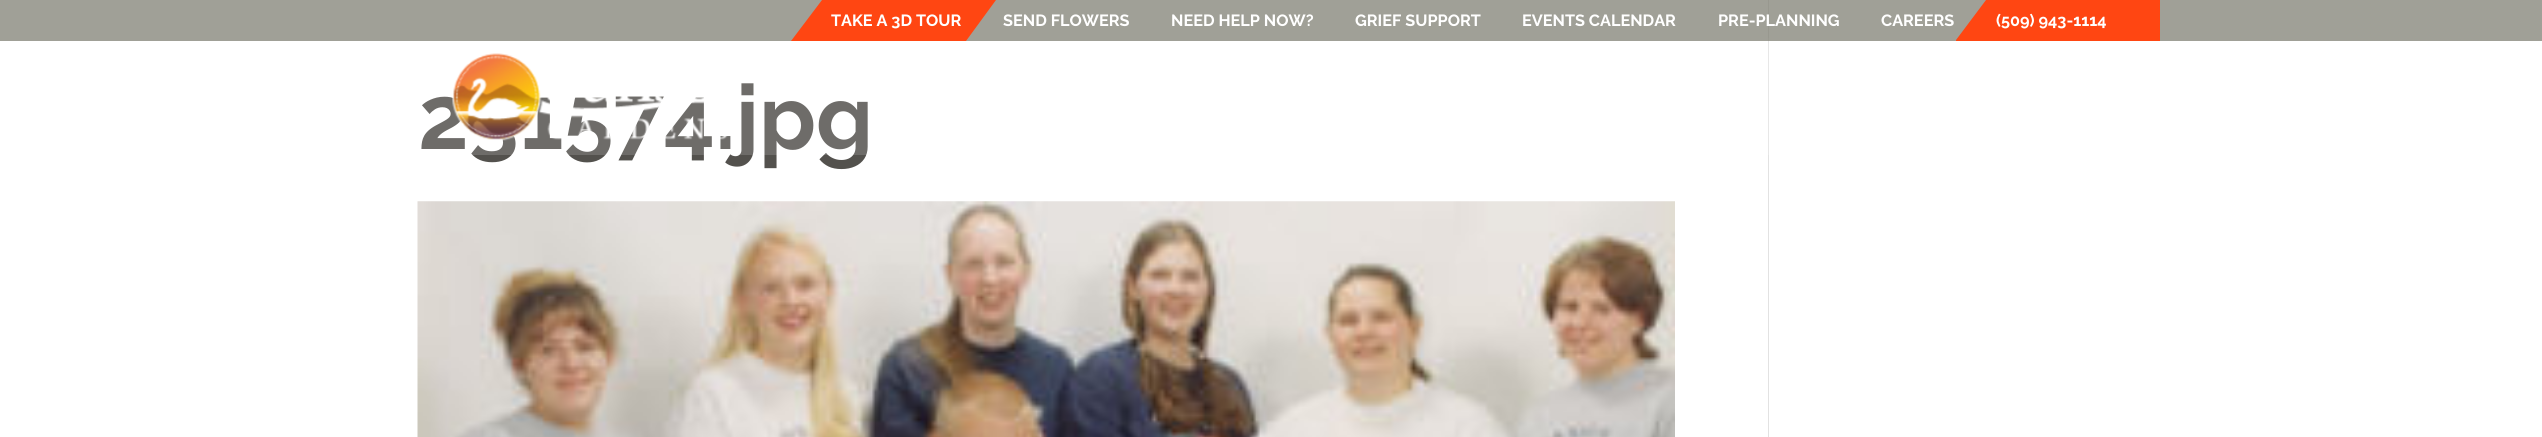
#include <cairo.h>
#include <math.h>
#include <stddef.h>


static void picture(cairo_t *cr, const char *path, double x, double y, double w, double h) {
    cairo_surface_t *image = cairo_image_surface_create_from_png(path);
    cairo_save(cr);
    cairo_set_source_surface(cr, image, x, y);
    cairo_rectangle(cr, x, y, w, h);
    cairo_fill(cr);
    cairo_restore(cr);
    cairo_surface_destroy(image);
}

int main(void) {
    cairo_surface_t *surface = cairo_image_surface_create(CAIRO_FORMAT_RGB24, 2542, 437);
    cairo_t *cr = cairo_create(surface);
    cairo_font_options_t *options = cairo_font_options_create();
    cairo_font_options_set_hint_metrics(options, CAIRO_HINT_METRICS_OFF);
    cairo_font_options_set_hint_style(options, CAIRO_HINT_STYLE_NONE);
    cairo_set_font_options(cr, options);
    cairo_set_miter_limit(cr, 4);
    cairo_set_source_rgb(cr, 1, 1, 1);
    cairo_paint(cr);
    cairo_select_font_face(cr, "Raleway Thin", CAIRO_FONT_SLANT_NORMAL, CAIRO_FONT_WEIGHT_NORMAL);
    cairo_set_font_size(cr, 90);
    cairo_set_source_rgb(cr, 0.325, 0.318, 0.302);
    cairo_move_to(cr, 418, 149);
    cairo_show_text(cr, "231574.jpg");
    cairo_set_source_rgb(cr, 0.886, 0.886, 0.886);
    cairo_rectangle(cr, 1768, 0, 1, 437);
    cairo_fill(cr);
    cairo_set_source_rgba(cr, 1, 1, 1, 0.16);
    cairo_rectangle(cr, 421, 38, 1348, 117);
    cairo_fill(cr);
    cairo_set_source_rgba(cr, 0.498, 0.498, 0.451, 0.74);
    cairo_rectangle(cr, 0, 0, 2542, 41);
    cairo_fill(cr);
    cairo_set_source_rgb(cr, 1, 0.275, 0.071);
    cairo_new_path(cr);
    cairo_move_to(cr, 996, 0);
    cairo_line_to(cr, 966, 41);
    cairo_line_to(cr, 791, 41);
    cairo_line_to(cr, 822, 0);
    cairo_close_path(cr);
    cairo_fill(cr);
    cairo_set_font_size(cr, 16.25);
    cairo_set_source_rgb(cr, 1, 1, 1);
    cairo_move_to(cr, 831, 26);
    cairo_show_text(cr, "TAKE A 3D TOUR");
    cairo_move_to(cr, 1003, 26);
    cairo_show_text(cr, "SEND FLOWERS");
    cairo_move_to(cr, 1171, 26);
    cairo_show_text(cr, "NEED HELP NOW?");
    cairo_move_to(cr, 1355, 26);
    cairo_show_text(cr, "GRIEF SUPPORT");
    cairo_move_to(cr, 1522, 26);
    cairo_show_text(cr, "EVENTS CALENDAR");
    cairo_move_to(cr, 1718, 26);
    cairo_show_text(cr, "PRE-PLANNING");
    cairo_move_to(cr, 1881, 26);
    cairo_show_text(cr, "CAREERS");
    cairo_set_source_rgb(cr, 1, 0.275, 0.071);
    cairo_new_path(cr);
    cairo_move_to(cr, 1956, 40);
    cairo_line_to(cr, 1986, 0);
    cairo_line_to(cr, 2160, 0);
    cairo_line_to(cr, 2160, 41);
    cairo_line_to(cr, 1956, 41);
    cairo_close_path(cr);
    cairo_fill(cr);
    cairo_set_source_rgb(cr, 1, 1, 1);
    cairo_move_to(cr, 1996, 26);
    cairo_show_text(cr, "(509) 943-1114");
    picture(cr, "img1.png", 452, 53, 276, 88);
    picture(cr, "img2.png", 417, 201, 1258, 236);
    cairo_surface_write_to_png(surface, "page.png");
    cairo_font_options_destroy(options);
    cairo_destroy(cr);
    cairo_surface_destroy(surface);
    return 0;
}
